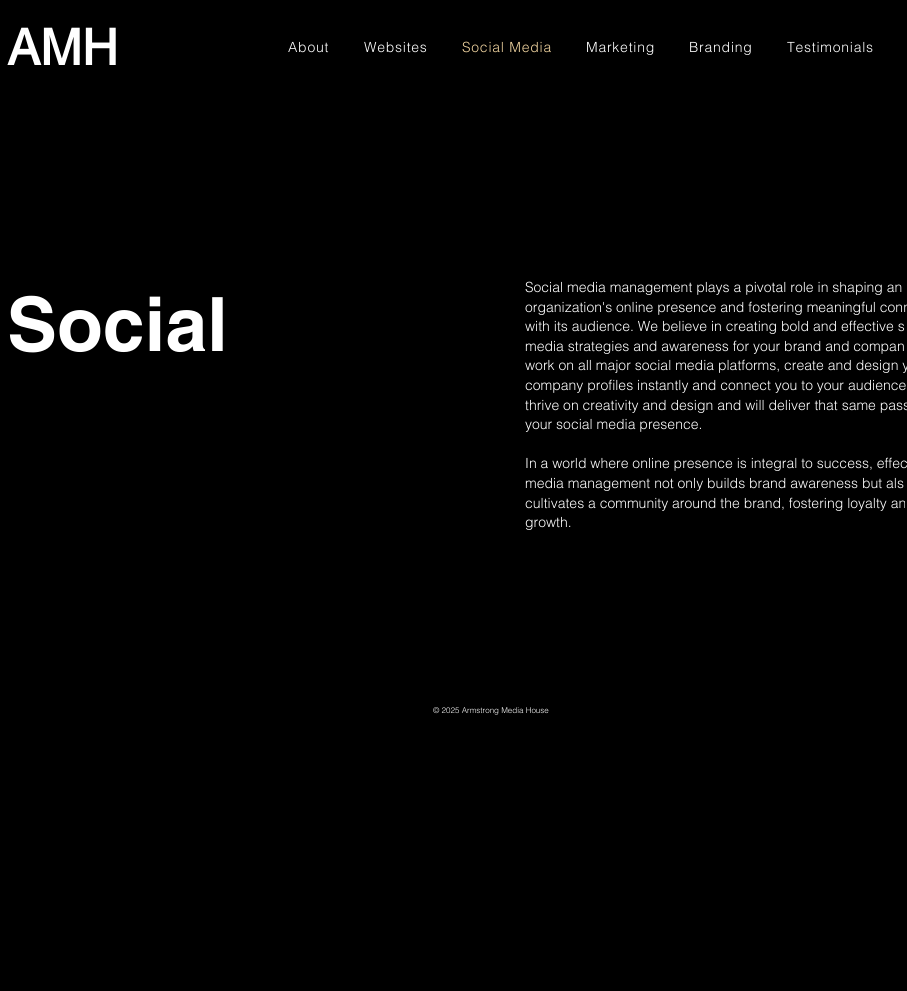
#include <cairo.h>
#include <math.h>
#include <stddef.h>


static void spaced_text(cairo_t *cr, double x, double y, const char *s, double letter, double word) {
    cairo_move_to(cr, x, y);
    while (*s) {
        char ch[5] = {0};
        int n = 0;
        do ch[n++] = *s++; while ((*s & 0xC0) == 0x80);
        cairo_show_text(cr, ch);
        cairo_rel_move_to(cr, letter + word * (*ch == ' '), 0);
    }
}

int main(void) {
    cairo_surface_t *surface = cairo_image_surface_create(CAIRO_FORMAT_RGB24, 907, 991);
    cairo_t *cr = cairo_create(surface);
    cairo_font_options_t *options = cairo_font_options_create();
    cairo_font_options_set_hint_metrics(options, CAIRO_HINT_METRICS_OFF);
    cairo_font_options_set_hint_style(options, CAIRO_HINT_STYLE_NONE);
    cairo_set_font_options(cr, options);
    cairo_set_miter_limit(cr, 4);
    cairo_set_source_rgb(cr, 0, 0, 0);
    cairo_paint(cr);
    cairo_select_font_face(cr, "helvetica", CAIRO_FONT_SLANT_NORMAL, CAIRO_FONT_WEIGHT_BOLD);
    cairo_set_font_size(cr, 50);
    cairo_set_source_rgb(cr, 1, 1, 1);
    cairo_move_to(cr, 7, 65);
    cairo_show_text(cr, "AMH");
    cairo_select_font_face(cr, "helvetica Light", CAIRO_FONT_SLANT_NORMAL, CAIRO_FONT_WEIGHT_NORMAL);
    cairo_set_font_size(cr, 14);
    spaced_text(cr, 288, 52, "About", 0.75, 0);
    spaced_text(cr, 364, 52, "Websites", 0.75, 0);
    cairo_set_source_rgb(cr, 0.949, 0.835, 0.627);
    spaced_text(cr, 462, 52, "Social Media", 0.75, 0);
    cairo_set_source_rgb(cr, 1, 1, 1);
    spaced_text(cr, 586, 52, "Marketing", 0.75, 0);
    spaced_text(cr, 689, 52, "Branding", 0.75, 0);
    spaced_text(cr, 787, 52, "Testimonials", 0.75, 0);
    cairo_select_font_face(cr, "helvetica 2", CAIRO_FONT_SLANT_NORMAL, CAIRO_FONT_WEIGHT_BOLD);
    cairo_set_font_size(cr, 75);
    cairo_move_to(cr, 7, 351);
    cairo_show_text(cr, "Social");
    cairo_select_font_face(cr, "helvetica Light", CAIRO_FONT_SLANT_NORMAL, CAIRO_FONT_WEIGHT_NORMAL);
    cairo_set_font_size(cr, 14);
    cairo_move_to(cr, 525, 292);
    cairo_show_text(cr, "Social media management plays a pivotal role in shaping an");
    cairo_move_to(cr, 525, 312);
    cairo_show_text(cr, "organization's online presence and fostering meaningful conn");
    cairo_move_to(cr, 525, 331);
    cairo_show_text(cr, "with its audience. We believe in creating bold and effective s");
    cairo_move_to(cr, 525, 351);
    cairo_show_text(cr, "media strategies and awareness for your brand and compan");
    cairo_move_to(cr, 525, 370);
    cairo_show_text(cr, "work on all major social media platforms, create and design y");
    cairo_move_to(cr, 525, 390);
    cairo_show_text(cr, "company profiles instantly and connect you to your audience");
    cairo_move_to(cr, 525, 410);
    cairo_show_text(cr, "thrive on creativity and design and will deliver that same pass");
    cairo_move_to(cr, 525, 429);
    cairo_show_text(cr, "your social media presence.");
    cairo_move_to(cr, 525, 468);
    cairo_show_text(cr, "In a world where online presence is integral to success, effec");
    cairo_move_to(cr, 525, 488);
    cairo_show_text(cr, "media management not only builds brand awareness but als");
    cairo_move_to(cr, 525, 508);
    cairo_show_text(cr, "cultivates a community around the brand, fostering loyalty an");
    cairo_move_to(cr, 525, 527);
    cairo_show_text(cr, "growth.");
    cairo_set_font_size(cr, 8);
    cairo_move_to(cr, 433, 713);
    cairo_show_text(cr, "© 2025 Armstrong Media House");
    cairo_surface_write_to_png(surface, "page.png");
    cairo_font_options_destroy(options);
    cairo_destroy(cr);
    cairo_surface_destroy(surface);
    return 0;
}
